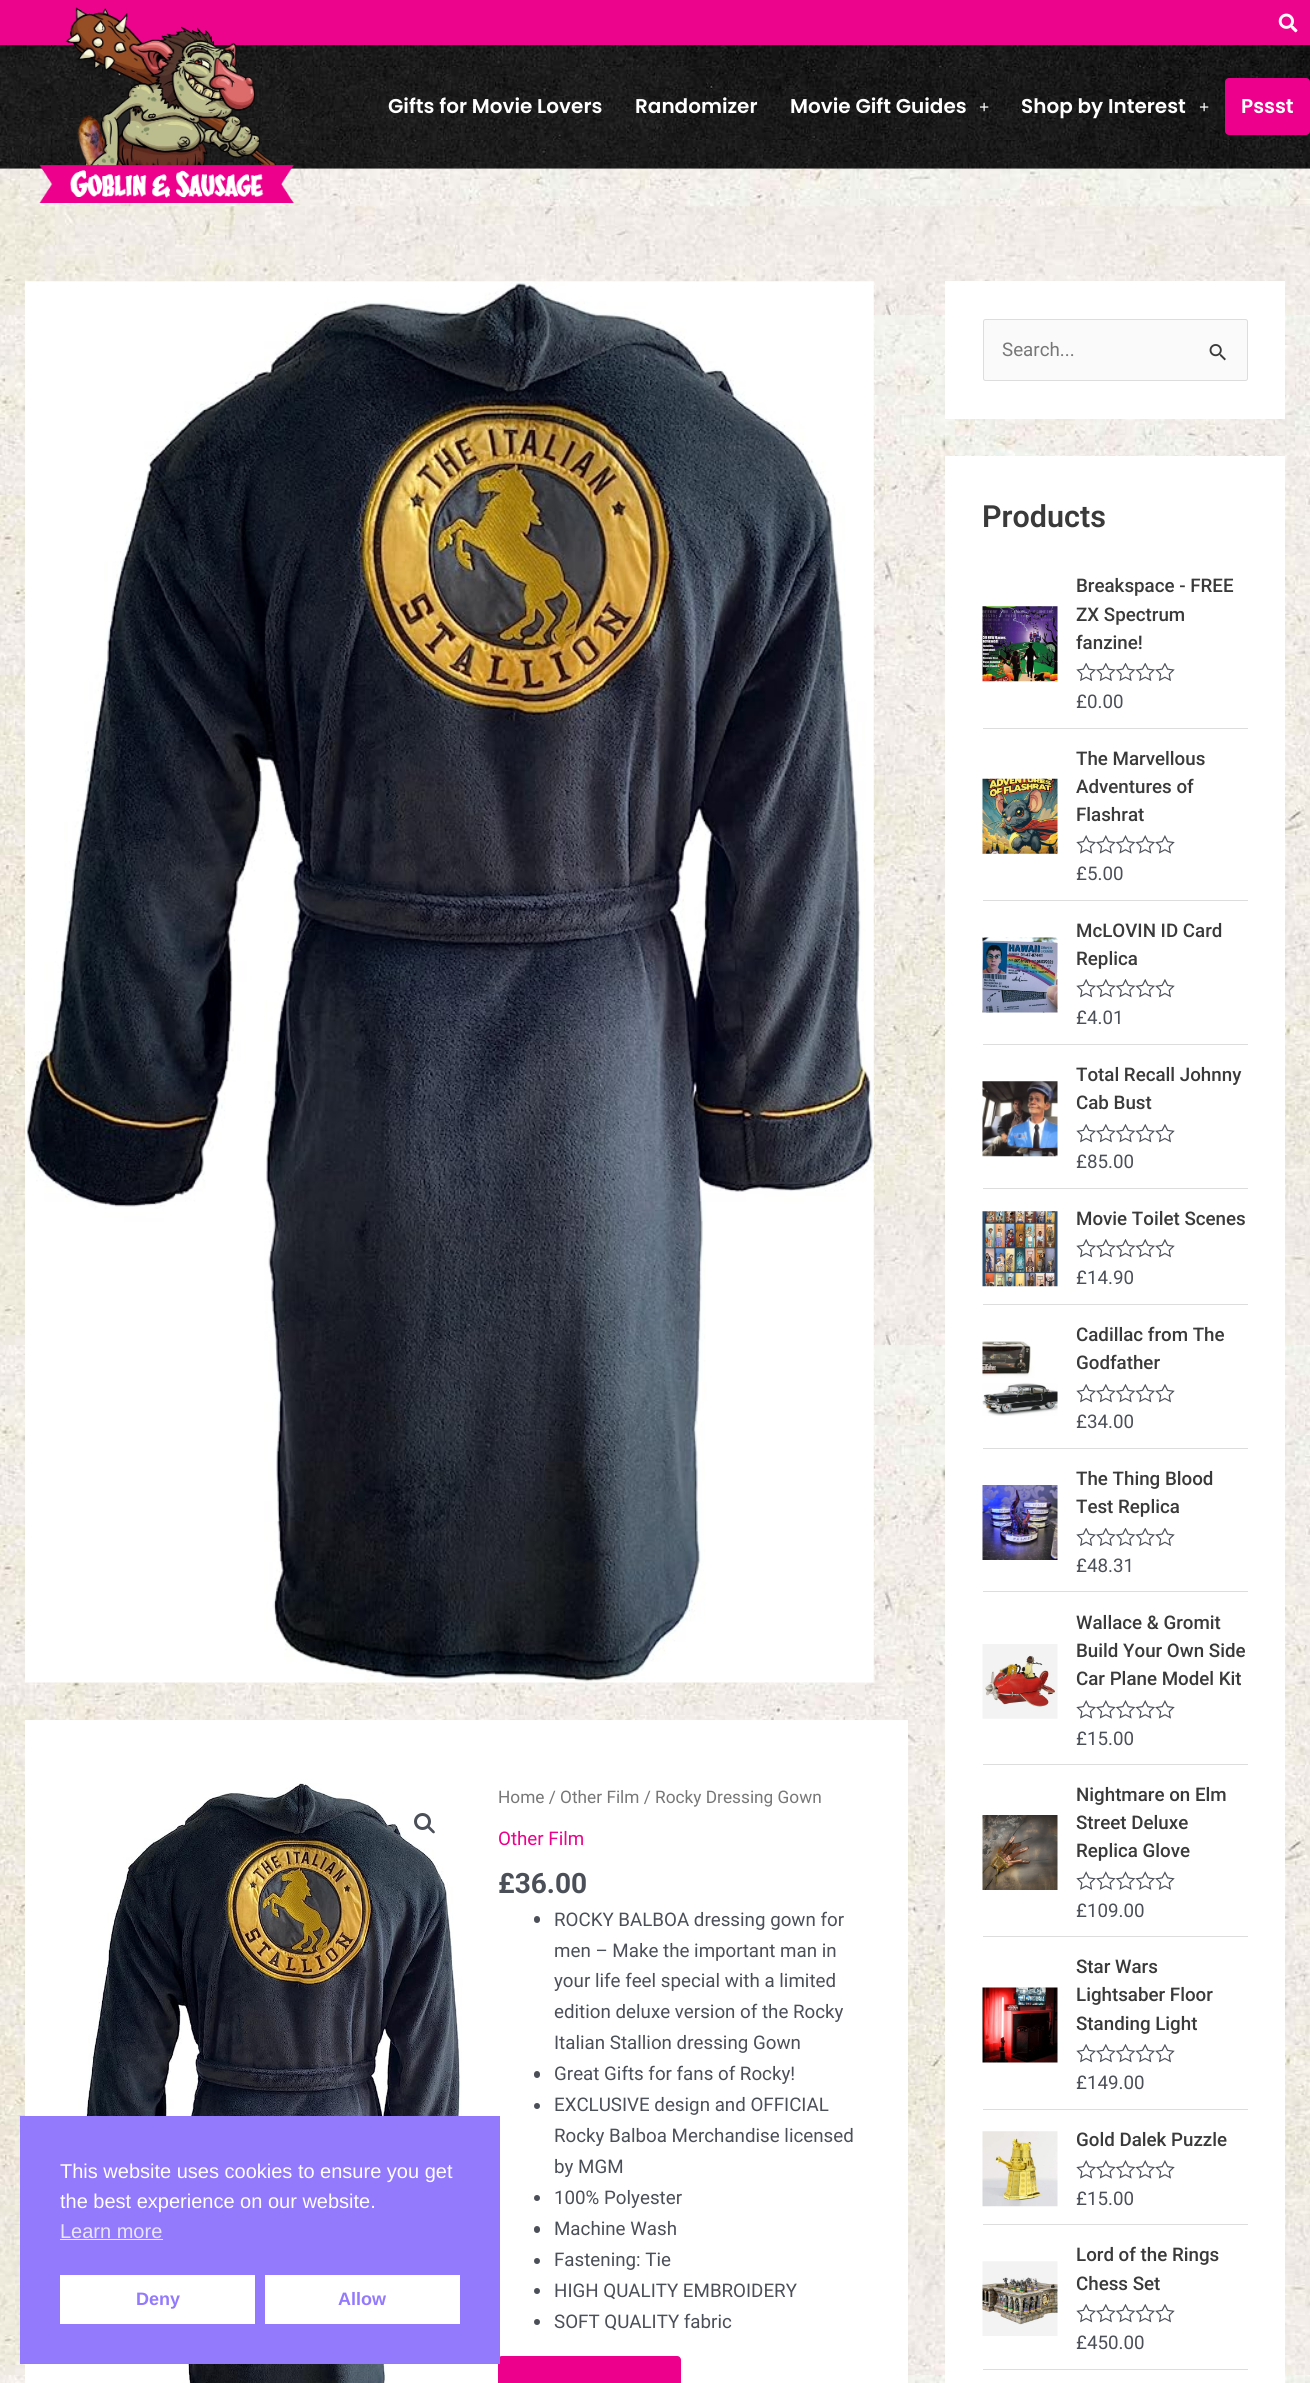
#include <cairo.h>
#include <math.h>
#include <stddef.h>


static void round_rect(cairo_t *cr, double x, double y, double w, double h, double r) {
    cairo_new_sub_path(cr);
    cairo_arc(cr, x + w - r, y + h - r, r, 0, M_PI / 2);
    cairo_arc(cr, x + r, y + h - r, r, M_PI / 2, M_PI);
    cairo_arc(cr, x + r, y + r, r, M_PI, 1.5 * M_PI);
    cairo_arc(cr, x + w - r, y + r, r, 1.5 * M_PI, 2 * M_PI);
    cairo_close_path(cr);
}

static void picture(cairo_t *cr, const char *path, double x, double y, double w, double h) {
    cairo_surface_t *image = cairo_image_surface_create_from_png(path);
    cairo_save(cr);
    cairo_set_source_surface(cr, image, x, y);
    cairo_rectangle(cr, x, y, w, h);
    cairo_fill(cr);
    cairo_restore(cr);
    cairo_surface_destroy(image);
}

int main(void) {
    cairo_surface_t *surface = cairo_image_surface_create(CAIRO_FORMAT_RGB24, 1310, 2383);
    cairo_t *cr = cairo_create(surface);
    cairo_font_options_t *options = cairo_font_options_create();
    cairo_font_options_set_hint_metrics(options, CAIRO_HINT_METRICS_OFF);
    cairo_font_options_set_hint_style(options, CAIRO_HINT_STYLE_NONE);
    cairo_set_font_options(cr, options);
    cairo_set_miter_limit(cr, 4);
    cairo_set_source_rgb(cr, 1, 1, 1);
    cairo_paint(cr);
    picture(cr, "img1.png", 0, 168, 1310, 2215);
    cairo_set_source_rgb(cr, 1, 1, 1);
    cairo_rectangle(cr, 25, 1720, 883, 663);
    cairo_fill(cr);
    picture(cr, "img7.png", 70, 1783, 396, 600);
    cairo_set_source_rgb(cr, 0.925, 0, 0.549);
    round_rect(cr, 498, 2356, 183, 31, 4);
    cairo_fill(cr);
    cairo_set_source_rgb(cr, 0.576, 0.478, 0.988);
    cairo_rectangle(cr, 20, 2116, 480, 248);
    cairo_fill(cr);
    cairo_select_font_face(cr, "Liberation Sans", CAIRO_FONT_SLANT_NORMAL, CAIRO_FONT_WEIGHT_NORMAL);
    cairo_set_font_size(cr, 20);
    cairo_set_source_rgb(cr, 1, 1, 1);
    cairo_move_to(cr, 60, 2178);
    cairo_show_text(cr, "This website uses cookies to ensure you get");
    cairo_move_to(cr, 60, 2208);
    cairo_show_text(cr, "the best experience on our website.");
    cairo_set_source_rgb(cr, 0.914, 0.894, 0.996);
    cairo_move_to(cr, 60, 2238);
    cairo_show_text(cr, "Learn more");
    cairo_rectangle(cr, 60, 2239, 103, 1);
    cairo_fill(cr);
    cairo_set_source_rgb(cr, 1, 1, 1);
    cairo_rectangle(cr, 60, 2275, 195, 49);
    cairo_fill(cr);
    cairo_select_font_face(cr, "Liberation Sans", CAIRO_FONT_SLANT_NORMAL, CAIRO_FONT_WEIGHT_BOLD);
    cairo_set_font_size(cr, 18);
    cairo_set_source_rgb(cr, 0.576, 0.478, 0.988);
    cairo_move_to(cr, 136, 2305);
    cairo_show_text(cr, "Deny");
    cairo_set_source_rgb(cr, 1, 1, 1);
    cairo_rectangle(cr, 265, 2275, 195, 49);
    cairo_fill(cr);
    cairo_set_source_rgb(cr, 0.576, 0.478, 0.988);
    cairo_move_to(cr, 338, 2305);
    cairo_show_text(cr, "Allow");
    cairo_set_source_rgb(cr, 0.925, 0.016, 0.549);
    cairo_rectangle(cr, 0, 0, 1310, 45);
    cairo_fill(cr);
    picture(cr, "img2.png", 1278, 13, 20, 20);
    picture(cr, "img3.png", 0, 45, 1310, 124);
    picture(cr, "img5.png", 0, 168, 1310, 39);
    picture(cr, "img4.png", 39, 7, 255, 196);
    cairo_select_font_face(cr, "Poppins SemiBold", CAIRO_FONT_SLANT_NORMAL, CAIRO_FONT_WEIGHT_NORMAL);
    cairo_set_font_size(cr, 20);
    cairo_set_source_rgb(cr, 1, 1, 1);
    cairo_move_to(cr, 388, 113);
    cairo_show_text(cr, "Gifts for Movie Lovers");
    cairo_move_to(cr, 635, 113);
    cairo_show_text(cr, "Randomizer");
    cairo_move_to(cr, 790, 113);
    cairo_show_text(cr, "Movie Gift Guides");
    cairo_select_font_face(cr, "Liberation Serif", CAIRO_FONT_SLANT_NORMAL, CAIRO_FONT_WEIGHT_BOLD);
    cairo_set_font_size(cr, 18);
    cairo_move_to(cr, 979, 113);
    cairo_show_text(cr, "+");
    cairo_select_font_face(cr, "Poppins SemiBold", CAIRO_FONT_SLANT_NORMAL, CAIRO_FONT_WEIGHT_NORMAL);
    cairo_set_font_size(cr, 20);
    cairo_move_to(cr, 1021, 113);
    cairo_show_text(cr, "Shop by Interest");
    cairo_select_font_face(cr, "Liberation Serif", CAIRO_FONT_SLANT_NORMAL, CAIRO_FONT_WEIGHT_BOLD);
    cairo_set_font_size(cr, 18);
    cairo_move_to(cr, 1199, 113);
    cairo_show_text(cr, "+");
    cairo_set_source_rgb(cr, 0.925, 0, 0.549);
    round_rect(cr, 1225, 78, 85, 57, 4);
    cairo_fill(cr);
    cairo_select_font_face(cr, "Poppins SemiBold", CAIRO_FONT_SLANT_NORMAL, CAIRO_FONT_WEIGHT_NORMAL);
    cairo_set_font_size(cr, 20);
    cairo_set_source_rgb(cr, 1, 1, 1);
    cairo_move_to(cr, 1241, 113);
    cairo_show_text(cr, "Pssst");
    picture(cr, "img6.png", 25, 281, 849, 1402);
    cairo_arc(cr, 425.5, 1823.5, 22.5, 0, 2 * M_PI);
    cairo_fill(cr);
    cairo_arc(cr, 422.5, 1821.5, 7, 0, 2 * M_PI);
    cairo_set_source_rgb(cr, 0.294, 0.31, 0.345);
    cairo_set_line_width(cr, 3);
    cairo_stroke(cr);
    cairo_new_path(cr);
    cairo_move_to(cr, 427.5, 1826);
    cairo_curve_to(cr, 429, 1824.5, 431, 1828, 432, 1828.5);
    cairo_curve_to(cr, 432.5, 1829.5, 436, 1831.5, 434.5, 1833);
    cairo_curve_to(cr, 433, 1834.5, 431, 1831, 430, 1830.5);
    cairo_curve_to(cr, 429.5, 1829.5, 426, 1827.5, 427.5, 1826);
    cairo_close_path(cr);
    cairo_fill(cr);
    cairo_select_font_face(cr, "Roboto", CAIRO_FONT_SLANT_NORMAL, CAIRO_FONT_WEIGHT_NORMAL);
    cairo_set_font_size(cr, 17.25);
    cairo_set_source_rgb(cr, 0.467, 0.467, 0.467);
    cairo_move_to(cr, 498, 1803);
    cairo_show_text(cr, "Home / Other Film / Rocky Dressing Gown");
    cairo_set_font_size(cr, 18.75);
    cairo_set_source_rgb(cr, 0.925, 0, 0.549);
    cairo_move_to(cr, 498, 1845);
    cairo_show_text(cr, "Other Film");
    cairo_select_font_face(cr, "Roboto", CAIRO_FONT_SLANT_NORMAL, CAIRO_FONT_WEIGHT_BOLD);
    cairo_set_font_size(cr, 28);
    cairo_set_source_rgb(cr, 0.294, 0.31, 0.345);
    cairo_move_to(cr, 498, 1893);
    cairo_show_text(cr, "£36.00");
    round_rect(cr, 534, 1916, 6, 7, 3);
    cairo_fill(cr);
    cairo_select_font_face(cr, "Roboto", CAIRO_FONT_SLANT_NORMAL, CAIRO_FONT_WEIGHT_NORMAL);
    cairo_set_font_size(cr, 18.75);
    cairo_move_to(cr, 554, 1926);
    cairo_show_text(cr, "ROCKY BALBOA dressing gown for");
    cairo_move_to(cr, 554, 1957);
    cairo_show_text(cr, "men – Make the important man in");
    cairo_move_to(cr, 554, 1987);
    cairo_show_text(cr, "your life feel special with a limited");
    cairo_move_to(cr, 554, 2018);
    cairo_show_text(cr, "edition deluxe version of the Rocky");
    cairo_move_to(cr, 554, 2049);
    cairo_show_text(cr, "Italian Stallion dressing Gown");
    round_rect(cr, 534, 2071, 6, 7, 3);
    cairo_fill(cr);
    cairo_move_to(cr, 554, 2080);
    cairo_show_text(cr, "Great Gifts for fans of Rocky!");
    cairo_new_path(cr);
    cairo_arc(cr, 537, 2106, 3, 0, 2 * M_PI);
    cairo_fill(cr);
    cairo_move_to(cr, 554, 2111);
    cairo_show_text(cr, "EXCLUSIVE design and OFFICIAL");
    cairo_move_to(cr, 554, 2142);
    cairo_show_text(cr, "Rocky Balboa Merchandise licensed");
    cairo_move_to(cr, 554, 2173);
    cairo_show_text(cr, "by MGM");
    cairo_new_path(cr);
    cairo_arc(cr, 537, 2198, 3, 0, 2 * M_PI);
    cairo_fill(cr);
    cairo_move_to(cr, 554, 2204);
    cairo_show_text(cr, "100% Polyester");
    round_rect(cr, 534, 2226, 6, 7, 3);
    cairo_fill(cr);
    cairo_move_to(cr, 554, 2235);
    cairo_show_text(cr, "Machine Wash");
    cairo_new_path(cr);
    cairo_arc(cr, 537, 2261, 3, 0, 2 * M_PI);
    cairo_fill(cr);
    cairo_move_to(cr, 554, 2266);
    cairo_show_text(cr, "Fastening: Tie");
    cairo_new_path(cr);
    cairo_arc(cr, 537, 2291, 3, 0, 2 * M_PI);
    cairo_fill(cr);
    cairo_move_to(cr, 554, 2297);
    cairo_show_text(cr, "HIGH QUALITY EMBROIDERY");
    cairo_new_path(cr);
    cairo_arc(cr, 537, 2322, 3, 0, 2 * M_PI);
    cairo_fill(cr);
    cairo_move_to(cr, 554, 2328);
    cairo_show_text(cr, "SOFT QUALITY fabric");
    cairo_set_source_rgb(cr, 1, 1, 1);
    cairo_rectangle(cr, 945, 281, 340, 138);
    cairo_fill(cr);
    cairo_set_source_rgb(cr, 0.98, 0.98, 0.98);
    round_rect(cr, 983.5, 319.5, 264, 61, 2);
    cairo_fill_preserve(cr);
    cairo_set_source_rgb(cr, 0.867, 0.867, 0.867);
    cairo_set_line_width(cr, 1);
    cairo_stroke(cr);
    cairo_set_source_rgb(cr, 0.467, 0.467, 0.467);
    cairo_move_to(cr, 1002, 356);
    cairo_show_text(cr, "Search...");
    picture(cr, "img8.png", 1209, 344, 17, 17);
    cairo_set_source_rgb(cr, 1, 1, 1);
    cairo_rectangle(cr, 945, 456, 340, 1927);
    cairo_fill(cr);
    cairo_select_font_face(cr, "Roboto SemiBold", CAIRO_FONT_SLANT_NORMAL, CAIRO_FONT_WEIGHT_NORMAL);
    cairo_set_font_size(cr, 30.5);
    cairo_set_source_rgb(cr, 0.227, 0.227, 0.227);
    cairo_move_to(cr, 982, 527);
    cairo_show_text(cr, "Products");
    cairo_set_source_rgb(cr, 0.867, 0.867, 0.867);
    cairo_rectangle(cr, 983, 728, 265, 1);
    cairo_fill(cr);
    cairo_select_font_face(cr, "Roboto Medium", CAIRO_FONT_SLANT_NORMAL, CAIRO_FONT_WEIGHT_NORMAL);
    cairo_set_font_size(cr, 18.75);
    cairo_set_source_rgb(cr, 0.227, 0.227, 0.227);
    cairo_move_to(cr, 1076, 592);
    cairo_show_text(cr, "Breakspace - FREE");
    picture(cr, "img9.png", 982, 606, 76, 76);
    cairo_move_to(cr, 1076, 621);
    cairo_show_text(cr, "ZX Spectrum");
    cairo_move_to(cr, 1076, 649);
    cairo_show_text(cr, "fanzine!");
    picture(cr, "img10.png", 1076, 663, 99, 18);
    cairo_select_font_face(cr, "Roboto", CAIRO_FONT_SLANT_NORMAL, CAIRO_FONT_WEIGHT_NORMAL);
    cairo_set_source_rgb(cr, 0.294, 0.31, 0.345);
    cairo_move_to(cr, 1076, 708);
    cairo_show_text(cr, "£0.00");
    cairo_set_source_rgb(cr, 0.867, 0.867, 0.867);
    cairo_rectangle(cr, 983, 900, 265, 1);
    cairo_fill(cr);
    cairo_select_font_face(cr, "Roboto Medium", CAIRO_FONT_SLANT_NORMAL, CAIRO_FONT_WEIGHT_NORMAL);
    cairo_set_source_rgb(cr, 0.227, 0.227, 0.227);
    cairo_move_to(cr, 1076, 765);
    cairo_show_text(cr, "The Marvellous");
    picture(cr, "img11.png", 982, 778, 76, 76);
    cairo_move_to(cr, 1076, 793);
    cairo_show_text(cr, "Adventures of");
    cairo_move_to(cr, 1076, 821);
    cairo_show_text(cr, "Flashrat");
    picture(cr, "img12.png", 1076, 835, 99, 19);
    cairo_select_font_face(cr, "Roboto", CAIRO_FONT_SLANT_NORMAL, CAIRO_FONT_WEIGHT_NORMAL);
    cairo_set_source_rgb(cr, 0.294, 0.31, 0.345);
    cairo_move_to(cr, 1076, 880);
    cairo_show_text(cr, "£5.00");
    cairo_set_source_rgb(cr, 0.867, 0.867, 0.867);
    cairo_rectangle(cr, 983, 1044, 265, 1);
    cairo_fill(cr);
    cairo_select_font_face(cr, "Roboto Medium", CAIRO_FONT_SLANT_NORMAL, CAIRO_FONT_WEIGHT_NORMAL);
    cairo_set_source_rgb(cr, 0.227, 0.227, 0.227);
    cairo_move_to(cr, 1076, 937);
    cairo_show_text(cr, "McLOVIN ID Card");
    picture(cr, "img13.png", 982, 937, 76, 76);
    cairo_move_to(cr, 1076, 965);
    cairo_show_text(cr, "Replica");
    picture(cr, "img14.png", 1076, 979, 99, 19);
    cairo_select_font_face(cr, "Roboto", CAIRO_FONT_SLANT_NORMAL, CAIRO_FONT_WEIGHT_NORMAL);
    cairo_set_source_rgb(cr, 0.294, 0.31, 0.345);
    cairo_move_to(cr, 1076, 1024);
    cairo_show_text(cr, "£4.01");
    cairo_set_source_rgb(cr, 0.867, 0.867, 0.867);
    cairo_rectangle(cr, 983, 1188, 265, 1);
    cairo_fill(cr);
    cairo_select_font_face(cr, "Roboto Medium", CAIRO_FONT_SLANT_NORMAL, CAIRO_FONT_WEIGHT_NORMAL);
    cairo_set_source_rgb(cr, 0.227, 0.227, 0.227);
    cairo_move_to(cr, 1076, 1081);
    cairo_show_text(cr, "Total Recall Johnny");
    picture(cr, "img15.png", 982, 1081, 76, 76);
    cairo_move_to(cr, 1076, 1109);
    cairo_show_text(cr, "Cab Bust");
    picture(cr, "img14.png", 1076, 1124, 99, 19);
    cairo_select_font_face(cr, "Roboto", CAIRO_FONT_SLANT_NORMAL, CAIRO_FONT_WEIGHT_NORMAL);
    cairo_set_source_rgb(cr, 0.294, 0.31, 0.345);
    cairo_move_to(cr, 1076, 1168);
    cairo_show_text(cr, "£85.00");
    cairo_set_source_rgb(cr, 0.867, 0.867, 0.867);
    cairo_rectangle(cr, 983, 1304, 265, 1);
    cairo_fill(cr);
    picture(cr, "img16.png", 982, 1211, 76, 76);
    cairo_select_font_face(cr, "Roboto Medium", CAIRO_FONT_SLANT_NORMAL, CAIRO_FONT_WEIGHT_NORMAL);
    cairo_set_source_rgb(cr, 0.227, 0.227, 0.227);
    cairo_move_to(cr, 1076, 1225);
    cairo_show_text(cr, "Movie Toilet Scenes");
    picture(cr, "img14.png", 1076, 1239, 99, 19);
    cairo_select_font_face(cr, "Roboto", CAIRO_FONT_SLANT_NORMAL, CAIRO_FONT_WEIGHT_NORMAL);
    cairo_set_source_rgb(cr, 0.294, 0.31, 0.345);
    cairo_move_to(cr, 1076, 1284);
    cairo_show_text(cr, "£14.90");
    cairo_set_source_rgb(cr, 0.867, 0.867, 0.867);
    cairo_rectangle(cr, 983, 1448, 265, 1);
    cairo_fill(cr);
    cairo_select_font_face(cr, "Roboto Medium", CAIRO_FONT_SLANT_NORMAL, CAIRO_FONT_WEIGHT_NORMAL);
    cairo_set_source_rgb(cr, 0.227, 0.227, 0.227);
    cairo_move_to(cr, 1076, 1341);
    cairo_show_text(cr, "Cadillac from The");
    picture(cr, "img17.png", 982, 1341, 76, 75);
    cairo_move_to(cr, 1076, 1369);
    cairo_show_text(cr, "Godfather");
    picture(cr, "img14.png", 1076, 1384, 99, 19);
    cairo_select_font_face(cr, "Roboto", CAIRO_FONT_SLANT_NORMAL, CAIRO_FONT_WEIGHT_NORMAL);
    cairo_set_source_rgb(cr, 0.294, 0.31, 0.345);
    cairo_move_to(cr, 1076, 1428);
    cairo_show_text(cr, "£34.00");
    cairo_set_source_rgb(cr, 0.867, 0.867, 0.867);
    cairo_rectangle(cr, 983, 1591, 265, 1);
    cairo_fill(cr);
    cairo_select_font_face(cr, "Roboto Medium", CAIRO_FONT_SLANT_NORMAL, CAIRO_FONT_WEIGHT_NORMAL);
    cairo_set_source_rgb(cr, 0.227, 0.227, 0.227);
    cairo_move_to(cr, 1076, 1485);
    cairo_show_text(cr, "The Thing Blood");
    picture(cr, "img18.png", 982, 1485, 76, 75);
    cairo_move_to(cr, 1076, 1513);
    cairo_show_text(cr, "Test Replica");
    picture(cr, "img10.png", 1076, 1528, 99, 18);
    cairo_select_font_face(cr, "Roboto", CAIRO_FONT_SLANT_NORMAL, CAIRO_FONT_WEIGHT_NORMAL);
    cairo_set_source_rgb(cr, 0.294, 0.31, 0.345);
    cairo_move_to(cr, 1076, 1572);
    cairo_show_text(cr, "£48.31");
    cairo_set_source_rgb(cr, 0.867, 0.867, 0.867);
    cairo_rectangle(cr, 983, 1764, 265, 1);
    cairo_fill(cr);
    cairo_select_font_face(cr, "Roboto Medium", CAIRO_FONT_SLANT_NORMAL, CAIRO_FONT_WEIGHT_NORMAL);
    cairo_set_source_rgb(cr, 0.227, 0.227, 0.227);
    cairo_move_to(cr, 1076, 1629);
    cairo_show_text(cr, "Wallace & Gromit");
    picture(cr, "img19.png", 982, 1644, 76, 75);
    cairo_move_to(cr, 1076, 1657);
    cairo_show_text(cr, "Build Your Own Side");
    cairo_move_to(cr, 1076, 1685);
    cairo_show_text(cr, "Car Plane Model Kit");
    picture(cr, "img12.png", 1076, 1700, 99, 19);
    cairo_select_font_face(cr, "Roboto", CAIRO_FONT_SLANT_NORMAL, CAIRO_FONT_WEIGHT_NORMAL);
    cairo_set_source_rgb(cr, 0.294, 0.31, 0.345);
    cairo_move_to(cr, 1076, 1745);
    cairo_show_text(cr, "£15.00");
    cairo_set_source_rgb(cr, 0.867, 0.867, 0.867);
    cairo_rectangle(cr, 983, 1936, 265, 1);
    cairo_fill(cr);
    cairo_select_font_face(cr, "Roboto Medium", CAIRO_FONT_SLANT_NORMAL, CAIRO_FONT_WEIGHT_NORMAL);
    cairo_set_source_rgb(cr, 0.227, 0.227, 0.227);
    cairo_move_to(cr, 1076, 1801);
    cairo_show_text(cr, "Nightmare on Elm");
    picture(cr, "img20.png", 982, 1815, 76, 75);
    cairo_move_to(cr, 1076, 1829);
    cairo_show_text(cr, "Street Deluxe");
    cairo_move_to(cr, 1076, 1857);
    cairo_show_text(cr, "Replica Glove");
    picture(cr, "img21.png", 1076, 1871, 99, 19);
    cairo_select_font_face(cr, "Roboto", CAIRO_FONT_SLANT_NORMAL, CAIRO_FONT_WEIGHT_NORMAL);
    cairo_set_source_rgb(cr, 0.294, 0.31, 0.345);
    cairo_move_to(cr, 1076, 1917);
    cairo_show_text(cr, "£109.00");
    cairo_set_source_rgb(cr, 0.867, 0.867, 0.867);
    cairo_rectangle(cr, 983, 2109, 265, 1);
    cairo_fill(cr);
    cairo_select_font_face(cr, "Roboto Medium", CAIRO_FONT_SLANT_NORMAL, CAIRO_FONT_WEIGHT_NORMAL);
    cairo_set_source_rgb(cr, 0.227, 0.227, 0.227);
    cairo_move_to(cr, 1076, 1973);
    cairo_show_text(cr, "Star Wars");
    picture(cr, "img22.png", 982, 1987, 76, 76);
    cairo_move_to(cr, 1076, 2001);
    cairo_show_text(cr, "Lightsaber Floor");
    cairo_move_to(cr, 1076, 2030);
    cairo_show_text(cr, "Standing Light");
    picture(cr, "img14.png", 1076, 2044, 99, 19);
    cairo_select_font_face(cr, "Roboto", CAIRO_FONT_SLANT_NORMAL, CAIRO_FONT_WEIGHT_NORMAL);
    cairo_set_source_rgb(cr, 0.294, 0.31, 0.345);
    cairo_move_to(cr, 1076, 2089);
    cairo_show_text(cr, "£149.00");
    cairo_set_source_rgb(cr, 0.867, 0.867, 0.867);
    cairo_rectangle(cr, 983, 2224, 265, 1);
    cairo_fill(cr);
    picture(cr, "img23.png", 982, 2131, 76, 76);
    cairo_select_font_face(cr, "Roboto Medium", CAIRO_FONT_SLANT_NORMAL, CAIRO_FONT_WEIGHT_NORMAL);
    cairo_set_source_rgb(cr, 0.227, 0.227, 0.227);
    cairo_move_to(cr, 1076, 2146);
    cairo_show_text(cr, "Gold Dalek Puzzle");
    picture(cr, "img12.png", 1076, 2160, 99, 19);
    cairo_select_font_face(cr, "Roboto", CAIRO_FONT_SLANT_NORMAL, CAIRO_FONT_WEIGHT_NORMAL);
    cairo_set_source_rgb(cr, 0.294, 0.31, 0.345);
    cairo_move_to(cr, 1076, 2205);
    cairo_show_text(cr, "£15.00");
    cairo_set_source_rgb(cr, 0.867, 0.867, 0.867);
    cairo_rectangle(cr, 983, 2369, 265, 1);
    cairo_fill(cr);
    cairo_select_font_face(cr, "Roboto Medium", CAIRO_FONT_SLANT_NORMAL, CAIRO_FONT_WEIGHT_NORMAL);
    cairo_set_source_rgb(cr, 0.227, 0.227, 0.227);
    cairo_move_to(cr, 1076, 2261);
    cairo_show_text(cr, "Lord of the Rings");
    picture(cr, "img24.png", 982, 2261, 76, 75);
    cairo_move_to(cr, 1076, 2290);
    cairo_show_text(cr, "Chess Set");
    picture(cr, "img14.png", 1076, 2304, 99, 19);
    cairo_select_font_face(cr, "Roboto", CAIRO_FONT_SLANT_NORMAL, CAIRO_FONT_WEIGHT_NORMAL);
    cairo_set_source_rgb(cr, 0.294, 0.31, 0.345);
    cairo_move_to(cr, 1076, 2349);
    cairo_show_text(cr, "£450.00");
    cairo_surface_write_to_png(surface, "page.png");
    cairo_font_options_destroy(options);
    cairo_destroy(cr);
    cairo_surface_destroy(surface);
    return 0;
}
